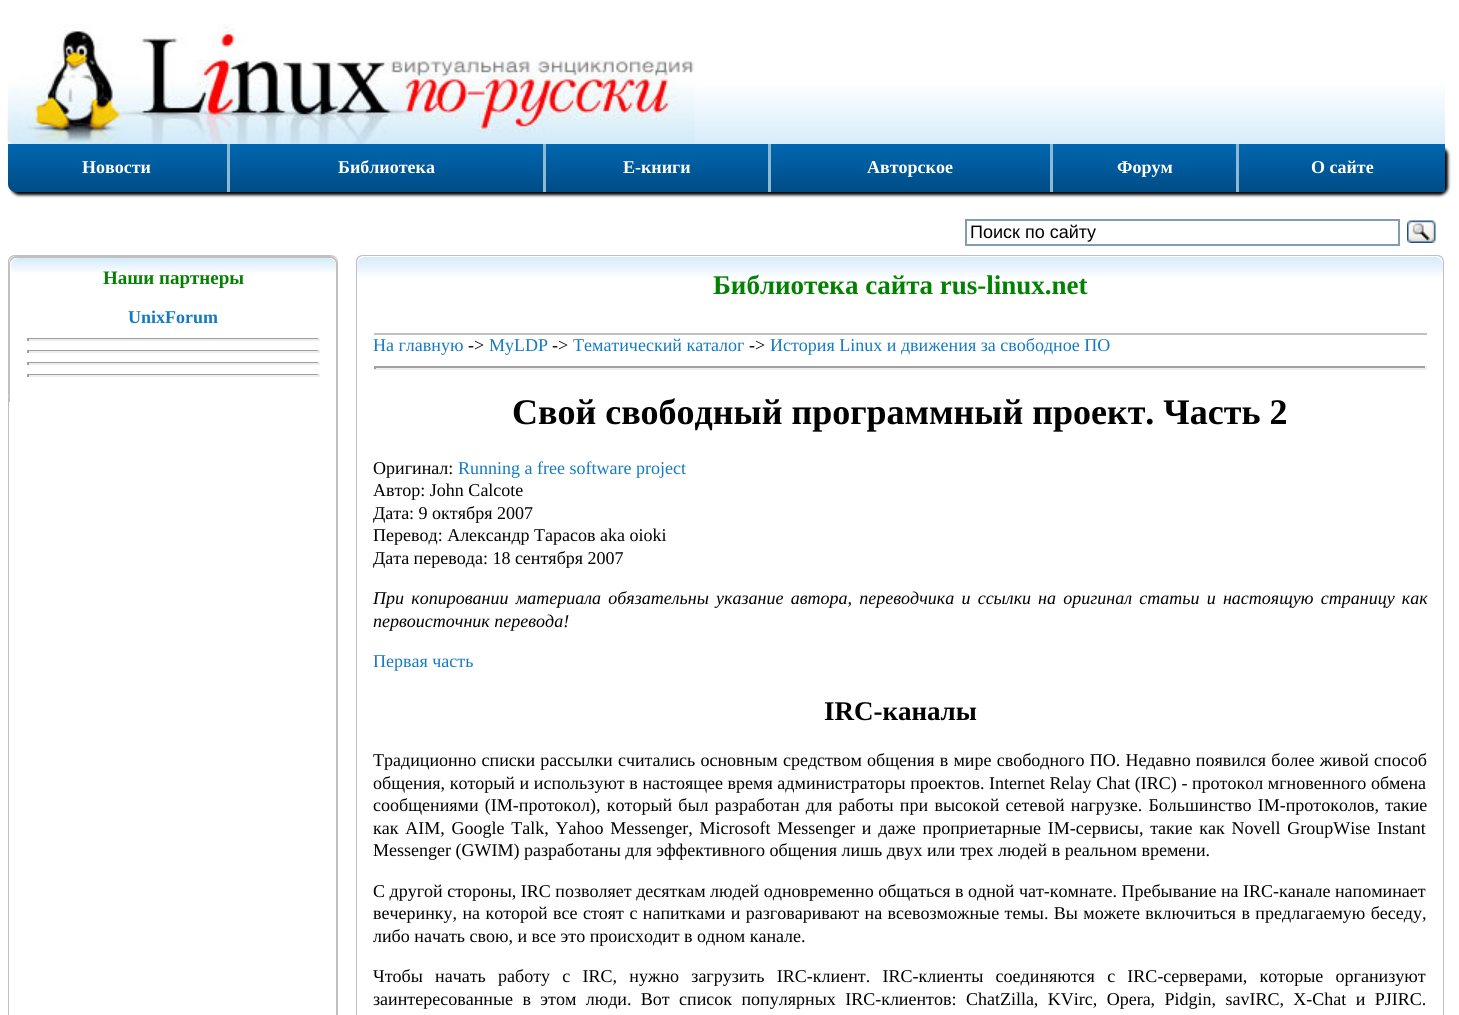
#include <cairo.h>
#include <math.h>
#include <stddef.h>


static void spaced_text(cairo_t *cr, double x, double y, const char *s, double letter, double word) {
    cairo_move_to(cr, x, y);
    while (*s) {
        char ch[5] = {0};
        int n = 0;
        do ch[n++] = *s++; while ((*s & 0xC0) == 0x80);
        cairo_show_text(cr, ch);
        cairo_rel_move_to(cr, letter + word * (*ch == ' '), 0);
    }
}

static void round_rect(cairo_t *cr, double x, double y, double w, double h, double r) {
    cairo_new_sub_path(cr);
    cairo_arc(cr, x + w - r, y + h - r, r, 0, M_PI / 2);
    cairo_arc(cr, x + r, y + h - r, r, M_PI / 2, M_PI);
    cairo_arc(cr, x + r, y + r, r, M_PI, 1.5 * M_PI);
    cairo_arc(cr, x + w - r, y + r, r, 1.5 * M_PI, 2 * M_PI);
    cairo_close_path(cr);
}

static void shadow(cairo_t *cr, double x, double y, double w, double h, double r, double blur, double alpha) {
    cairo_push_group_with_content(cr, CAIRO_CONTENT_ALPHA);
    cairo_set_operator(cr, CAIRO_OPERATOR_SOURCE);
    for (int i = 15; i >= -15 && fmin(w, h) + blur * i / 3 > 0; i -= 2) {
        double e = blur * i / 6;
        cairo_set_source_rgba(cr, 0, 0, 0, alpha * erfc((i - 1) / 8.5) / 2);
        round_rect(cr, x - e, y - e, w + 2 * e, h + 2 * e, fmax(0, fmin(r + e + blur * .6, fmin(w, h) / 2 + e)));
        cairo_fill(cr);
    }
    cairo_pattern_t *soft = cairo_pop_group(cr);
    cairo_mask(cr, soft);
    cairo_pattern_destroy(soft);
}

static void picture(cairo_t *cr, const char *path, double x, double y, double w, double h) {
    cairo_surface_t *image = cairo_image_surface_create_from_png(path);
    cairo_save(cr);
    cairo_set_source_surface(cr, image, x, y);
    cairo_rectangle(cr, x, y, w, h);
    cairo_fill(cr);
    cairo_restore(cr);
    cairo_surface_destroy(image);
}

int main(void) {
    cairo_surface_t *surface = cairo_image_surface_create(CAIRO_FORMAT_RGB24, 1459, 1015);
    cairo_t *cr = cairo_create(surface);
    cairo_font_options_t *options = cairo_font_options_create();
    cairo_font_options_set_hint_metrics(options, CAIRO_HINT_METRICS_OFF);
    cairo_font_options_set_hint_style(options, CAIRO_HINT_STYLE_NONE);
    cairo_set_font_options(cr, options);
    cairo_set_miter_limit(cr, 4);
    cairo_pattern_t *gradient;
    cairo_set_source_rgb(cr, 1, 1, 1);
    cairo_paint(cr);
    cairo_set_source_rgb(cr, 0, 0, 0);
    shadow(cr, 11, 147, 1437, 48, 8, 1.5, 1);
    gradient = cairo_pattern_create_linear(726, 150, 726, 12);
    cairo_pattern_add_color_stop_rgba(gradient, 0, 0.827, 0.918, 0.98, 1);
    cairo_pattern_add_color_stop_rgba(gradient, 0.5, 1, 1, 1, 1);
    cairo_pattern_add_color_stop_rgba(gradient, 1, 1, 1, 1, 1);
    cairo_set_source(cr, gradient);
    cairo_pattern_destroy(gradient);
    cairo_rectangle(cr, 8, 85, 1437, 59);
    cairo_fill(cr);
    picture(cr, "img1.png", 7, 24, 688, 120);
    picture(cr, "img2.png", 7, 119, 1, 23);
    gradient = cairo_pattern_create_linear(117, 144, 117, 192);
    cairo_pattern_add_color_stop_rgba(gradient, 0, 0, 0.404, 0.694, 1);
    cairo_pattern_add_color_stop_rgba(gradient, 1, 0, 0.298, 0.525, 1);
    cairo_set_source(cr, gradient);
    cairo_pattern_destroy(gradient);
    cairo_new_path(cr);
    cairo_move_to(cr, 8, 144);
    cairo_line_to(cr, 227, 144);
    cairo_line_to(cr, 227, 192);
    cairo_line_to(cr, 16, 192);
    cairo_curve_to(cr, 11.5, 192, 8, 188.5, 8, 184);
    cairo_close_path(cr);
    cairo_fill(cr);
    cairo_select_font_face(cr, "Liberation Serif", CAIRO_FONT_SLANT_NORMAL, CAIRO_FONT_WEIGHT_BOLD);
    cairo_set_font_size(cr, 18);
    cairo_set_source_rgb(cr, 1, 1, 1);
    cairo_move_to(cr, 82, 173);
    cairo_show_text(cr, "Новости");
    gradient = cairo_pattern_create_linear(386, 144, 386, 192);
    cairo_pattern_add_color_stop_rgba(gradient, 0, 0, 0.404, 0.694, 1);
    cairo_pattern_add_color_stop_rgba(gradient, 1, 0, 0.298, 0.525, 1);
    cairo_set_source(cr, gradient);
    cairo_pattern_destroy(gradient);
    cairo_rectangle(cr, 230, 144, 313, 48);
    cairo_fill(cr);
    cairo_set_source_rgb(cr, 0.549, 0.729, 0.824);
    cairo_rectangle(cr, 227, 144, 3, 48);
    cairo_fill(cr);
    cairo_set_source_rgb(cr, 1, 1, 1);
    cairo_move_to(cr, 338, 173);
    cairo_show_text(cr, "Библиотека");
    gradient = cairo_pattern_create_linear(657, 144, 657, 192);
    cairo_pattern_add_color_stop_rgba(gradient, 0, 0, 0.404, 0.694, 1);
    cairo_pattern_add_color_stop_rgba(gradient, 1, 0, 0.298, 0.525, 1);
    cairo_set_source(cr, gradient);
    cairo_pattern_destroy(gradient);
    cairo_rectangle(cr, 546, 144, 222, 48);
    cairo_fill(cr);
    cairo_set_source_rgb(cr, 0.549, 0.729, 0.824);
    cairo_rectangle(cr, 543, 144, 3, 48);
    cairo_fill(cr);
    cairo_set_source_rgb(cr, 1, 1, 1);
    cairo_move_to(cr, 623, 173);
    cairo_show_text(cr, "Е-книги");
    gradient = cairo_pattern_create_linear(911, 144, 911, 192);
    cairo_pattern_add_color_stop_rgba(gradient, 0, 0, 0.404, 0.694, 1);
    cairo_pattern_add_color_stop_rgba(gradient, 1, 0, 0.298, 0.525, 1);
    cairo_set_source(cr, gradient);
    cairo_pattern_destroy(gradient);
    cairo_rectangle(cr, 771, 144, 279, 48);
    cairo_fill(cr);
    cairo_set_source_rgb(cr, 0.549, 0.729, 0.824);
    cairo_rectangle(cr, 768, 144, 3, 48);
    cairo_fill(cr);
    cairo_set_source_rgb(cr, 1, 1, 1);
    cairo_move_to(cr, 867, 173);
    cairo_show_text(cr, "Авторское");
    gradient = cairo_pattern_create_linear(1145, 144, 1145, 192);
    cairo_pattern_add_color_stop_rgba(gradient, 0, 0, 0.404, 0.694, 1);
    cairo_pattern_add_color_stop_rgba(gradient, 1, 0, 0.298, 0.525, 1);
    cairo_set_source(cr, gradient);
    cairo_pattern_destroy(gradient);
    cairo_rectangle(cr, 1053, 144, 183, 48);
    cairo_fill(cr);
    cairo_set_source_rgb(cr, 0.549, 0.729, 0.824);
    cairo_rectangle(cr, 1050, 144, 3, 48);
    cairo_fill(cr);
    cairo_set_source_rgb(cr, 1, 1, 1);
    cairo_move_to(cr, 1117, 173);
    cairo_show_text(cr, "Форум");
    gradient = cairo_pattern_create_linear(1342, 144, 1342, 192);
    cairo_pattern_add_color_stop_rgba(gradient, 0, 0, 0.404, 0.694, 1);
    cairo_pattern_add_color_stop_rgba(gradient, 1, 0, 0.298, 0.525, 1);
    cairo_set_source(cr, gradient);
    cairo_pattern_destroy(gradient);
    cairo_rectangle(cr, 1239, 144, 206, 48);
    cairo_fill(cr);
    cairo_set_source_rgb(cr, 0.549, 0.729, 0.824);
    cairo_rectangle(cr, 1236, 144, 3, 48);
    cairo_fill(cr);
    cairo_set_source_rgb(cr, 1, 1, 1);
    cairo_move_to(cr, 1311, 173);
    cairo_show_text(cr, "О сайте");
    cairo_rectangle(cr, 966, 220, 433, 25);
    cairo_set_source_rgb(cr, 0.498, 0.616, 0.725);
    cairo_stroke(cr);
    cairo_select_font_face(cr, "Liberation Sans", CAIRO_FONT_SLANT_NORMAL, CAIRO_FONT_WEIGHT_NORMAL);
    cairo_set_source_rgb(cr, 0, 0, 0);
    cairo_move_to(cr, 970, 238);
    cairo_show_text(cr, "Поиск по сайту");
    picture(cr, "img3.png", 1407, 220, 29, 23);
    cairo_set_source_rgb(cr, 0.753, 0.753, 0.753);
    cairo_set_fill_rule(cr, CAIRO_FILL_RULE_EVEN_ODD);
    cairo_new_path(cr);
    cairo_move_to(cr, 15, 255);
    cairo_line_to(cr, 330, 255);
    cairo_curve_to(cr, 334, 255, 338, 258, 338, 262);
    cairo_line_to(cr, 338, 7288);
    cairo_curve_to(cr, 338, 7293, 334, 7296, 330, 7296);
    cairo_line_to(cr, 15, 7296);
    cairo_curve_to(cr, 11, 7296, 8, 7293, 8, 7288);
    cairo_line_to(cr, 8, 262);
    cairo_curve_to(cr, 8, 258, 11, 255, 15, 255);
    cairo_close_path(cr);
    cairo_move_to(cr, 15, 255);
    cairo_line_to(cr, 330, 255);
    cairo_curve_to(cr, 333, 255, 336, 258, 336, 262);
    cairo_line_to(cr, 336, 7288);
    cairo_curve_to(cr, 336, 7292, 333, 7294, 330, 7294);
    cairo_line_to(cr, 15, 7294);
    cairo_curve_to(cr, 12, 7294, 9, 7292, 9, 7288);
    cairo_line_to(cr, 9, 262);
    cairo_curve_to(cr, 9, 258, 12, 255, 15, 255);
    cairo_close_path(cr);
    cairo_fill(cr);
    cairo_set_source_rgba(cr, 1, 1, 1, 0.99);
    round_rect(cr, 8, 255, 330, 147, 8);
    cairo_fill(cr);
    cairo_set_source_rgba(cr, 0.753, 0.753, 0.753, 0.99);
    cairo_new_path(cr);
    cairo_move_to(cr, 15, 255);
    cairo_line_to(cr, 330, 255);
    cairo_curve_to(cr, 334, 255, 338, 258, 338, 262);
    cairo_line_to(cr, 338, 394);
    cairo_curve_to(cr, 338, 399, 334, 402, 330, 402);
    cairo_line_to(cr, 15, 402);
    cairo_curve_to(cr, 11, 402, 8, 399, 8, 394);
    cairo_line_to(cr, 8, 262);
    cairo_curve_to(cr, 8, 258, 11, 255, 15, 255);
    cairo_close_path(cr);
    cairo_move_to(cr, 15, 256);
    cairo_line_to(cr, 330, 256);
    cairo_curve_to(cr, 334, 256, 338, 259, 338, 262);
    cairo_line_to(cr, 338, 394);
    cairo_curve_to(cr, 338, 399, 334, 402, 330, 402);
    cairo_line_to(cr, 15, 402);
    cairo_curve_to(cr, 12, 402, 9, 399, 9, 394);
    cairo_line_to(cr, 9, 262);
    cairo_curve_to(cr, 9, 259, 12, 256, 15, 256);
    cairo_close_path(cr);
    cairo_fill(cr);
    cairo_set_source_rgba(cr, 1, 1, 1, 0.99);
    cairo_new_path(cr);
    cairo_move_to(cr, 17, 257);
    cairo_line_to(cr, 330, 257);
    cairo_curve_to(cr, 334.5, 257, 338, 260.5, 338, 265);
    cairo_line_to(cr, 338, 402);
    cairo_line_to(cr, 9, 402);
    cairo_line_to(cr, 9, 265);
    cairo_curve_to(cr, 9, 260.5, 12.5, 257, 17, 257);
    cairo_close_path(cr);
    cairo_fill(cr);
    cairo_set_source_rgba(cr, 0.753, 0.753, 0.753, 0.99);
    cairo_new_path(cr);
    cairo_move_to(cr, 16, 256);
    cairo_line_to(cr, 330, 256);
    cairo_curve_to(cr, 334, 256, 338, 260, 338, 264);
    cairo_line_to(cr, 338, 402);
    cairo_line_to(cr, 9, 402);
    cairo_line_to(cr, 9, 264);
    cairo_curve_to(cr, 9, 260, 12, 256, 16, 256);
    cairo_close_path(cr);
    cairo_move_to(cr, 16, 258);
    cairo_line_to(cr, 330, 258);
    cairo_curve_to(cr, 333, 258, 336, 261, 336, 264);
    cairo_line_to(cr, 336, 402);
    cairo_line_to(cr, 10, 402);
    cairo_line_to(cr, 10, 264);
    cairo_curve_to(cr, 10, 261, 13, 258, 16, 258);
    cairo_close_path(cr);
    cairo_fill(cr);
    gradient = cairo_pattern_create_linear(173, 258, 173, 290);
    cairo_pattern_add_color_stop_rgba(gradient, 0, 0.827, 0.918, 0.98, 1);
    cairo_pattern_add_color_stop_rgba(gradient, 0.5, 1, 1, 1, 1);
    cairo_pattern_add_color_stop_rgba(gradient, 1, 1, 1, 1, 1);
    cairo_set_source(cr, gradient);
    cairo_pattern_destroy(gradient);
    round_rect(cr, 11, 258, 325, 32, 8);
    cairo_fill(cr);
    cairo_select_font_face(cr, "Liberation Serif", CAIRO_FONT_SLANT_NORMAL, CAIRO_FONT_WEIGHT_BOLD);
    cairo_set_font_size(cr, 19);
    cairo_set_source_rgb(cr, 0.012, 0.506, 0.012);
    cairo_move_to(cr, 103, 284);
    cairo_show_text(cr, "Наши партнеры");
    cairo_set_font_size(cr, 18);
    cairo_set_source_rgb(cr, 0.075, 0.478, 0.761);
    cairo_move_to(cr, 128, 323);
    cairo_show_text(cr, "UnixForum");
    cairo_set_source_rgb(cr, 0.627, 0.627, 0.627);
    cairo_rectangle(cr, 27, 338, 293, 1);
    cairo_fill(cr);
    cairo_set_source_rgb(cr, 0.933, 0.933, 0.933);
    cairo_rectangle(cr, 318, 338, 2, 3);
    cairo_fill(cr);
    cairo_rectangle(cr, 27, 339, 293, 2);
    cairo_fill(cr);
    cairo_set_source_rgb(cr, 0.627, 0.627, 0.627);
    cairo_rectangle(cr, 27, 338, 2, 3);
    cairo_fill(cr);
    cairo_rectangle(cr, 27, 350, 293, 1);
    cairo_fill(cr);
    cairo_set_source_rgb(cr, 0.933, 0.933, 0.933);
    cairo_rectangle(cr, 318, 350, 2, 3);
    cairo_fill(cr);
    cairo_rectangle(cr, 27, 351, 293, 2);
    cairo_fill(cr);
    cairo_set_source_rgb(cr, 0.627, 0.627, 0.627);
    cairo_rectangle(cr, 27, 350, 2, 3);
    cairo_fill(cr);
    cairo_rectangle(cr, 27, 362, 293, 1);
    cairo_fill(cr);
    cairo_set_source_rgb(cr, 0.933, 0.933, 0.933);
    cairo_rectangle(cr, 318, 362, 2, 3);
    cairo_fill(cr);
    cairo_rectangle(cr, 27, 363, 293, 2);
    cairo_fill(cr);
    cairo_set_source_rgb(cr, 0.627, 0.627, 0.627);
    cairo_rectangle(cr, 27, 362, 2, 3);
    cairo_fill(cr);
    cairo_rectangle(cr, 27, 374, 293, 1);
    cairo_fill(cr);
    cairo_set_source_rgb(cr, 0.933, 0.933, 0.933);
    cairo_rectangle(cr, 318, 374, 2, 3);
    cairo_fill(cr);
    cairo_rectangle(cr, 27, 375, 293, 2);
    cairo_fill(cr);
    cairo_set_source_rgb(cr, 0.627, 0.627, 0.627);
    cairo_rectangle(cr, 27, 374, 2, 3);
    cairo_fill(cr);
    cairo_set_source_rgb(cr, 0.753, 0.753, 0.753);
    cairo_new_path(cr);
    cairo_move_to(cr, 363, 255);
    cairo_line_to(cr, 1437, 255);
    cairo_curve_to(cr, 1441, 255, 1444, 258, 1444, 262);
    cairo_line_to(cr, 1444, 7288);
    cairo_curve_to(cr, 1444, 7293, 1441, 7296, 1437, 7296);
    cairo_line_to(cr, 363, 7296);
    cairo_curve_to(cr, 359, 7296, 356, 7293, 356, 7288);
    cairo_line_to(cr, 356, 262);
    cairo_curve_to(cr, 356, 258, 359, 255, 363, 255);
    cairo_close_path(cr);
    cairo_move_to(cr, 363, 255);
    cairo_line_to(cr, 1437, 255);
    cairo_curve_to(cr, 1440, 255, 1443, 258, 1443, 262);
    cairo_line_to(cr, 1443, 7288);
    cairo_curve_to(cr, 1443, 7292, 1440, 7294, 1437, 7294);
    cairo_line_to(cr, 363, 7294);
    cairo_curve_to(cr, 360, 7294, 357, 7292, 357, 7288);
    cairo_line_to(cr, 357, 262);
    cairo_curve_to(cr, 357, 258, 360, 255, 363, 255);
    cairo_close_path(cr);
    cairo_fill(cr);
    cairo_set_source_rgba(cr, 1, 1, 1, 0.99);
    cairo_new_path(cr);
    cairo_move_to(cr, 364, 255);
    cairo_line_to(cr, 1437, 255);
    cairo_curve_to(cr, 1441.5, 255, 1445, 258.5, 1445, 263);
    cairo_line_to(cr, 1445, 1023);
    cairo_line_to(cr, 356, 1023);
    cairo_line_to(cr, 356, 263);
    cairo_curve_to(cr, 356, 258.5, 359.5, 255, 364, 255);
    cairo_close_path(cr);
    cairo_fill(cr);
    cairo_set_source_rgba(cr, 0.753, 0.753, 0.753, 0.99);
    cairo_new_path(cr);
    cairo_move_to(cr, 363, 255);
    cairo_line_to(cr, 1437, 255);
    cairo_curve_to(cr, 1441, 255, 1444, 258, 1444, 262);
    cairo_line_to(cr, 1444, 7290);
    cairo_line_to(cr, 356, 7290);
    cairo_line_to(cr, 356, 262);
    cairo_curve_to(cr, 356, 258, 359, 255, 363, 255);
    cairo_close_path(cr);
    cairo_move_to(cr, 363, 256);
    cairo_line_to(cr, 1437, 256);
    cairo_curve_to(cr, 1440, 256, 1443, 259, 1443, 262);
    cairo_line_to(cr, 1443, 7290);
    cairo_line_to(cr, 357, 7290);
    cairo_line_to(cr, 357, 262);
    cairo_curve_to(cr, 357, 259, 360, 256, 363, 256);
    cairo_close_path(cr);
    cairo_fill(cr);
    gradient = cairo_pattern_create_linear(900, 256, 900, 302);
    cairo_pattern_add_color_stop_rgba(gradient, 0, 0.827, 0.918, 0.98, 1);
    cairo_pattern_add_color_stop_rgba(gradient, 0.5, 1, 1, 1, 1);
    cairo_pattern_add_color_stop_rgba(gradient, 1, 1, 1, 1, 1);
    cairo_set_source(cr, gradient);
    cairo_pattern_destroy(gradient);
    round_rect(cr, 357, 257, 1086, 45, 8);
    cairo_fill(cr);
    cairo_set_font_size(cr, 27);
    cairo_set_source_rgb(cr, 0.012, 0.506, 0.012);
    cairo_move_to(cr, 713, 294);
    cairo_show_text(cr, "Библиотека сайта rus-linux.net");
    cairo_set_source_rgb(cr, 0.757, 0.757, 0.757);
    cairo_rectangle(cr, 374, 333, 1053, 2);
    cairo_fill(cr);
    cairo_select_font_face(cr, "Liberation Serif", CAIRO_FONT_SLANT_NORMAL, CAIRO_FONT_WEIGHT_NORMAL);
    cairo_set_font_size(cr, 18);
    cairo_set_source_rgb(cr, 0.075, 0.478, 0.761);
    cairo_move_to(cr, 373, 351);
    cairo_show_text(cr, "На главную");
    cairo_set_source_rgb(cr, 0, 0, 0);
    cairo_move_to(cr, 468, 351);
    cairo_show_text(cr, "->");
    cairo_set_source_rgb(cr, 0.075, 0.478, 0.761);
    cairo_move_to(cr, 489, 351);
    cairo_show_text(cr, "MyLDP");
    cairo_set_source_rgb(cr, 0, 0, 0);
    cairo_move_to(cr, 552, 351);
    cairo_show_text(cr, "->");
    cairo_set_source_rgb(cr, 0.075, 0.478, 0.761);
    cairo_move_to(cr, 573, 351);
    cairo_show_text(cr, "Тематический каталог");
    cairo_set_source_rgb(cr, 0, 0, 0);
    cairo_move_to(cr, 749, 351);
    cairo_show_text(cr, "->");
    cairo_set_source_rgb(cr, 0.075, 0.478, 0.761);
    cairo_move_to(cr, 770, 351);
    cairo_show_text(cr, "История Linux и движения за свободное ПО");
    cairo_set_source_rgb(cr, 0.627, 0.627, 0.627);
    cairo_rectangle(cr, 374, 366, 1053, 2);
    cairo_fill(cr);
    cairo_set_source_rgb(cr, 0.933, 0.933, 0.933);
    cairo_rectangle(cr, 1425, 366, 2, 3);
    cairo_fill(cr);
    cairo_rectangle(cr, 374, 368, 1053, 2);
    cairo_fill(cr);
    cairo_set_source_rgb(cr, 0.627, 0.627, 0.627);
    cairo_rectangle(cr, 374, 366, 2, 3);
    cairo_fill(cr);
    cairo_select_font_face(cr, "Liberation Serif", CAIRO_FONT_SLANT_NORMAL, CAIRO_FONT_WEIGHT_BOLD);
    cairo_set_font_size(cr, 36);
    cairo_set_source_rgb(cr, 0, 0, 0);
    cairo_move_to(cr, 512, 424);
    cairo_show_text(cr, "Свой свободный программный проект. Часть 2");
    cairo_select_font_face(cr, "Liberation Serif", CAIRO_FONT_SLANT_NORMAL, CAIRO_FONT_WEIGHT_NORMAL);
    cairo_set_font_size(cr, 18);
    cairo_move_to(cr, 373, 474);
    cairo_show_text(cr, "Оригинал:");
    cairo_set_source_rgb(cr, 0.075, 0.478, 0.761);
    cairo_move_to(cr, 458, 474);
    cairo_show_text(cr, "Running a free software project");
    cairo_set_source_rgb(cr, 0, 0, 0);
    cairo_move_to(cr, 373, 496);
    cairo_show_text(cr, "Автор: John Calcote");
    cairo_move_to(cr, 373, 519);
    cairo_show_text(cr, "Дата: 9 октября 2007");
    cairo_move_to(cr, 373, 541);
    cairo_show_text(cr, "Перевод: Александр Тарасов aka oioki");
    cairo_move_to(cr, 373, 564);
    cairo_show_text(cr, "Дата перевода: 18 сентября 2007");
    cairo_select_font_face(cr, "Liberation Serif", CAIRO_FONT_SLANT_ITALIC, CAIRO_FONT_WEIGHT_NORMAL);
    spaced_text(cr, 373, 604, "При копировании материала обязательны указание автора, переводчика и ссылки", 0, 2.75);
    spaced_text(cr, 1038, 604, "на оригинал статьи и настоящую страницу как", 0, 2.75);
    cairo_move_to(cr, 373, 627);
    cairo_show_text(cr, "первоисточник перевода!");
    cairo_select_font_face(cr, "Liberation Serif", CAIRO_FONT_SLANT_NORMAL, CAIRO_FONT_WEIGHT_NORMAL);
    cairo_set_source_rgb(cr, 0.075, 0.478, 0.761);
    cairo_move_to(cr, 373, 667);
    cairo_show_text(cr, "Первая часть");
    cairo_select_font_face(cr, "Liberation Serif", CAIRO_FONT_SLANT_NORMAL, CAIRO_FONT_WEIGHT_BOLD);
    cairo_set_font_size(cr, 27);
    cairo_set_source_rgb(cr, 0, 0, 0);
    cairo_move_to(cr, 824, 720);
    cairo_show_text(cr, "IRC-каналы");
    cairo_select_font_face(cr, "Liberation Serif", CAIRO_FONT_SLANT_NORMAL, CAIRO_FONT_WEIGHT_NORMAL);
    cairo_set_font_size(cr, 18);
    spaced_text(cr, 373, 766, "Традиционно списки рассылки считались основным средством общения в мире свободного ПО. Недавно появился более живой способ", 0, 0.7);
    spaced_text(cr, 373, 789, "общения, который и используют в настоящее время администраторы проектов. Internet Relay Chat (IRC) - протокол мгновенного обмена", 0, 0.1);
    spaced_text(cr, 373, 811, "сообщениями (IM-протокол), который был разработан для работы при высокой сетевой нагрузке. Большинство IM-протоколов, такие", 0, 1.75);
    spaced_text(cr, 373, 834, "как AIM, Google Talk, Yahoo Messenger, Microsoft Messenger и даже проприетарные IM-сервисы, такие как Novell GroupWise Instant", 0, 2.25);
    cairo_move_to(cr, 373, 856);
    cairo_show_text(cr, "Messenger (GWIM) разработаны для эффективного общения лишь двух или трех людей в реальном времени.");
    cairo_move_to(cr, 373, 897);
    cairo_show_text(cr, "С другой стороны, IRC позволяет десяткам людей одновременно общаться в одной чат-комнате. Пребывание на IRC-канале напоминает");
    spaced_text(cr, 373, 919, "вечеринку, на которой все стоят с напитками и разговаривают на всевозможные темы. Вы можете включиться в предлагаемую беседу,", 0, 0.9);
    cairo_move_to(cr, 373, 942);
    cairo_show_text(cr, "либо начать свою, и все это происходит в одном канале.");
    spaced_text(cr, 373, 982, "Чтобы начать работу с IRC, нужно загрузить IRC-клиент. IRC-клиенты соединяются с IRC-серверами, которые организуют", 0, 7.75);
    spaced_text(cr, 373, 1005, "заинтересованные в этом люди. Вот список популярных IRC-клиентов: ChatZilla, KVirc, Opera, Pidgin, savIRC, X-Chat и PJIRC.", 0, 4.9);
    cairo_surface_write_to_png(surface, "page.png");
    cairo_font_options_destroy(options);
    cairo_destroy(cr);
    cairo_surface_destroy(surface);
    return 0;
}
